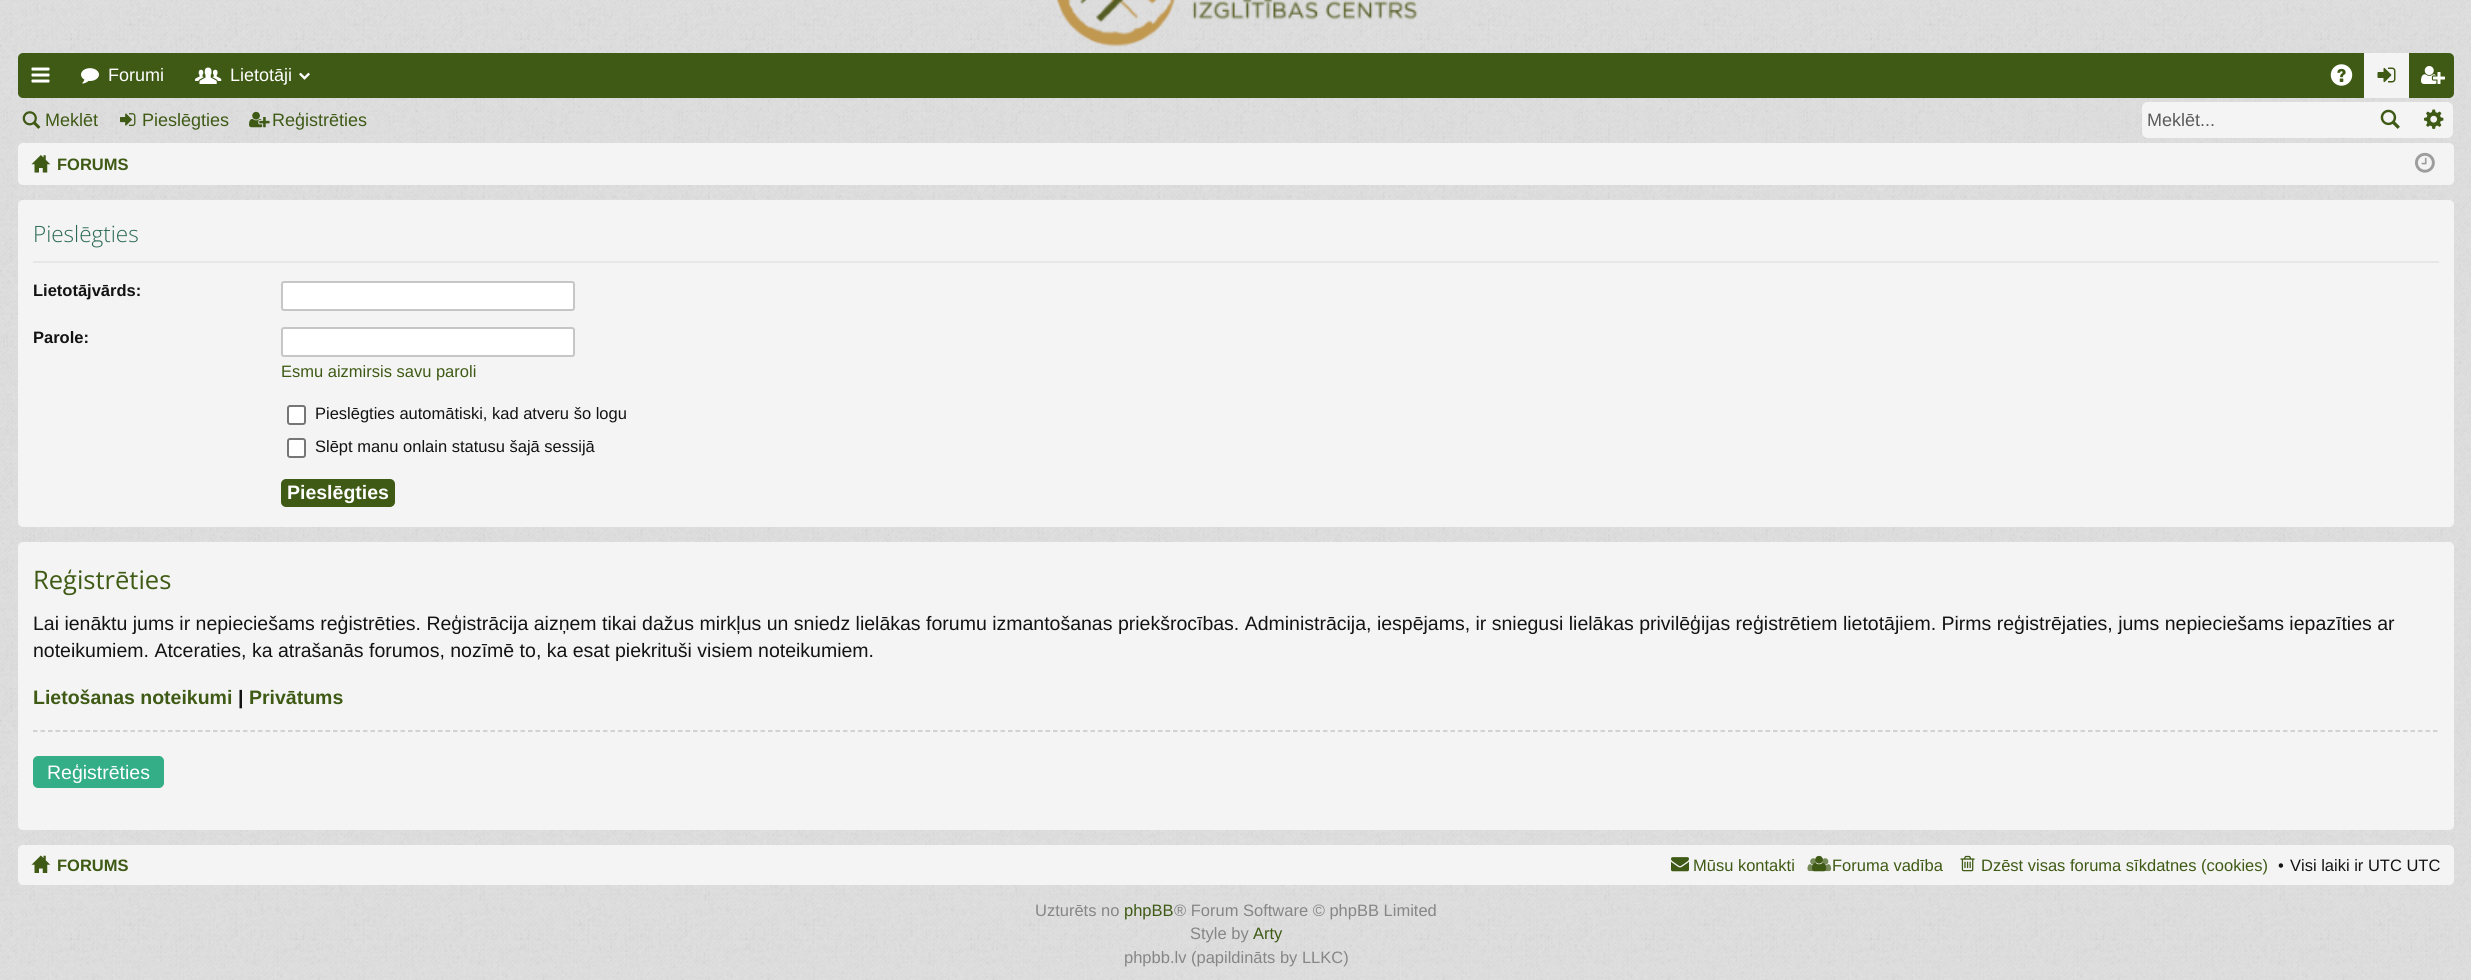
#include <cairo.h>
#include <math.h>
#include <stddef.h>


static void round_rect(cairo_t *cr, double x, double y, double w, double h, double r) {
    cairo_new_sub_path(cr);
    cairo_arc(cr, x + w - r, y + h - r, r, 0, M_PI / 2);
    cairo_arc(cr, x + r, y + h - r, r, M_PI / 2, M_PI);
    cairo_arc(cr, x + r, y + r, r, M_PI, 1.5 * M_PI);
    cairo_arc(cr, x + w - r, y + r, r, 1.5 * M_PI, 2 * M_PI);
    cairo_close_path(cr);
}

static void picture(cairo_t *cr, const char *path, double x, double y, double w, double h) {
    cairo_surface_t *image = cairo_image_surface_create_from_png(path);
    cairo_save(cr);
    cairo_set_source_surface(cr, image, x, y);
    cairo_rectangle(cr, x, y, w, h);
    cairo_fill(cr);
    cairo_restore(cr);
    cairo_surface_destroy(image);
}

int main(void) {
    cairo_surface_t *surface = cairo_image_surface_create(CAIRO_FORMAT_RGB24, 2471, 980);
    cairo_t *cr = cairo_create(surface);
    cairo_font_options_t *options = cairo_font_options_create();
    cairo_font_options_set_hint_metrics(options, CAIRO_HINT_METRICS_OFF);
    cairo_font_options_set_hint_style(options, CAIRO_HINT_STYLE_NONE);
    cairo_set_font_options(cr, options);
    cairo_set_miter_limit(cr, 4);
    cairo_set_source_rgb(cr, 0.878, 0.878, 0.878);
    cairo_paint(cr);
    picture(cr, "img1.png", 0, 0, 2471, 980);
    picture(cr, "img2.png", 1056, 0, 362, 47);
    cairo_set_source_rgb(cr, 0.243, 0.353, 0.082);
    round_rect(cr, 18, 53, 2436, 45, 5);
    cairo_fill(cr);
    picture(cr, "img3.png", 31, 67, 19, 16);
    picture(cr, "img4.png", 81, 68, 18, 16);
    cairo_select_font_face(cr, "Liberation Sans", CAIRO_FONT_SLANT_NORMAL, CAIRO_FONT_WEIGHT_NORMAL);
    cairo_set_font_size(cr, 18);
    cairo_set_source_rgb(cr, 1, 1, 1);
    cairo_move_to(cr, 108, 81);
    cairo_show_text(cr, "Forumi");
    picture(cr, "img5.png", 195, 67, 27, 17);
    cairo_move_to(cr, 230, 81);
    cairo_show_text(cr, "Lietotāji");
    picture(cr, "img6.png", 299, 72, 11, 8);
    picture(cr, "img7.png", 2330, 64, 23, 22);
    cairo_set_source_rgb(cr, 0.957, 0.957, 0.957);
    cairo_rectangle(cr, 2364, 53, 45, 45);
    cairo_fill(cr);
    picture(cr, "img8.png", 2377, 67, 19, 16);
    picture(cr, "img9.png", 2421, 66, 24, 18);
    picture(cr, "img10.png", 22, 111, 19, 18);
    cairo_set_source_rgb(cr, 0.243, 0.353, 0.082);
    cairo_move_to(cr, 45, 126);
    cairo_show_text(cr, "Meklēt");
    picture(cr, "img11.png", 120, 113, 16, 13);
    cairo_move_to(cr, 142, 126);
    cairo_show_text(cr, "Pieslēgties");
    picture(cr, "img12.png", 249, 111, 21, 17);
    cairo_move_to(cr, 272, 126);
    cairo_show_text(cr, "Reģistrēties");
    cairo_set_source_rgb(cr, 0.957, 0.957, 0.957);
    cairo_new_path(cr);
    cairo_move_to(cr, 2148, 102);
    cairo_line_to(cr, 2367, 102);
    cairo_line_to(cr, 2367, 138);
    cairo_line_to(cr, 2148, 138);
    cairo_curve_to(cr, 2144.5, 138, 2142, 135.5, 2142, 132);
    cairo_line_to(cr, 2142, 108);
    cairo_curve_to(cr, 2142, 104.5, 2144.5, 102, 2148, 102);
    cairo_close_path(cr);
    cairo_fill(cr);
    cairo_set_source_rgb(cr, 0.357, 0.357, 0.357);
    cairo_move_to(cr, 2147, 126);
    cairo_show_text(cr, "Meklēt...");
    cairo_set_source_rgb(cr, 0.957, 0.957, 0.957);
    cairo_rectangle(cr, 2367, 102, 45, 36);
    cairo_fill(cr);
    picture(cr, "img13.png", 2380, 109, 20, 20);
    cairo_new_path(cr);
    cairo_move_to(cr, 2412, 102);
    cairo_line_to(cr, 2447, 102);
    cairo_curve_to(cr, 2450.5, 102, 2453, 104.5, 2453, 108);
    cairo_line_to(cr, 2453, 132);
    cairo_curve_to(cr, 2453, 135.5, 2450.5, 138, 2447, 138);
    cairo_line_to(cr, 2412, 138);
    cairo_close_path(cr);
    cairo_fill(cr);
    picture(cr, "img14.png", 2424, 109, 20, 20);
    round_rect(cr, 18, 143, 2436, 42, 5);
    cairo_fill(cr);
    picture(cr, "img15.png", 31, 155, 20, 18);
    cairo_select_font_face(cr, "Liberation Sans", CAIRO_FONT_SLANT_NORMAL, CAIRO_FONT_WEIGHT_BOLD);
    cairo_set_font_size(cr, 16.5);
    cairo_set_source_rgb(cr, 0.243, 0.353, 0.082);
    cairo_move_to(cr, 57, 170);
    cairo_show_text(cr, "FORUMS");
    picture(cr, "img16.png", 2415, 152, 20, 21);
    cairo_set_source_rgb(cr, 0.957, 0.957, 0.957);
    round_rect(cr, 18, 200, 2436, 327, 5);
    cairo_fill(cr);
    cairo_set_source_rgb(cr, 0.906, 0.906, 0.906);
    cairo_rectangle(cr, 33, 261, 2406, 2);
    cairo_fill(cr);
    cairo_select_font_face(cr, "Open Sans Light", CAIRO_FONT_SLANT_NORMAL, CAIRO_FONT_WEIGHT_NORMAL);
    cairo_set_font_size(cr, 22.5);
    cairo_set_source_rgb(cr, 0.161, 0.412, 0.329);
    cairo_move_to(cr, 33, 242);
    cairo_show_text(cr, "Pieslēgties");
    cairo_select_font_face(cr, "Liberation Sans", CAIRO_FONT_SLANT_NORMAL, CAIRO_FONT_WEIGHT_BOLD);
    cairo_set_font_size(cr, 16.5);
    cairo_set_source_rgb(cr, 0.078, 0.078, 0.078);
    cairo_move_to(cr, 33, 296);
    cairo_show_text(cr, "Lietotājvārds:");
    cairo_set_source_rgb(cr, 1, 1, 1);
    round_rect(cr, 282, 282, 292, 28, 2);
    cairo_fill_preserve(cr);
    cairo_set_source_rgb(cr, 0.776, 0.776, 0.776);
    cairo_stroke(cr);
    cairo_set_source_rgb(cr, 0.078, 0.078, 0.078);
    cairo_move_to(cr, 33, 343);
    cairo_show_text(cr, "Parole:");
    cairo_set_source_rgb(cr, 1, 1, 1);
    round_rect(cr, 282, 328, 292, 28, 2);
    cairo_fill_preserve(cr);
    cairo_set_source_rgb(cr, 0.776, 0.776, 0.776);
    cairo_stroke(cr);
    cairo_select_font_face(cr, "Liberation Sans", CAIRO_FONT_SLANT_NORMAL, CAIRO_FONT_WEIGHT_NORMAL);
    cairo_set_source_rgb(cr, 0.243, 0.353, 0.082);
    cairo_move_to(cr, 281, 377);
    cairo_show_text(cr, "Esmu aizmirsis savu paroli");
    cairo_set_source_rgb(cr, 1, 1, 1);
    round_rect(cr, 288, 406, 17, 18, 2);
    cairo_fill_preserve(cr);
    cairo_set_source_rgb(cr, 0.463, 0.463, 0.463);
    cairo_stroke(cr);
    cairo_set_source_rgb(cr, 0.078, 0.078, 0.078);
    cairo_move_to(cr, 315, 419);
    cairo_show_text(cr, "Pieslēgties automātiski, kad atveru šo logu");
    cairo_set_source_rgb(cr, 1, 1, 1);
    round_rect(cr, 288, 439, 17, 18, 2);
    cairo_fill_preserve(cr);
    cairo_set_source_rgb(cr, 0.463, 0.463, 0.463);
    cairo_stroke(cr);
    cairo_set_source_rgb(cr, 0.078, 0.078, 0.078);
    cairo_move_to(cr, 315, 452);
    cairo_show_text(cr, "Slēpt manu onlain statusu šajā sessijā");
    cairo_set_source_rgb(cr, 0.243, 0.353, 0.082);
    round_rect(cr, 282, 480, 112, 26, 4);
    cairo_fill_preserve(cr);
    cairo_stroke(cr);
    cairo_select_font_face(cr, "Liberation Sans", CAIRO_FONT_SLANT_NORMAL, CAIRO_FONT_WEIGHT_BOLD);
    cairo_set_font_size(cr, 19.5);
    cairo_set_source_rgb(cr, 1, 1, 1);
    cairo_move_to(cr, 287, 499);
    cairo_show_text(cr, "Pieslēgties");
    cairo_set_source_rgb(cr, 0.957, 0.957, 0.957);
    round_rect(cr, 18, 542, 2436, 288, 5);
    cairo_fill(cr);
    cairo_select_font_face(cr, "Open Sans", CAIRO_FONT_SLANT_NORMAL, CAIRO_FONT_WEIGHT_NORMAL);
    cairo_set_font_size(cr, 25.5);
    cairo_set_source_rgb(cr, 0.243, 0.353, 0.082);
    cairo_move_to(cr, 33, 589);
    cairo_show_text(cr, "Reģistrēties");
    cairo_select_font_face(cr, "Liberation Sans", CAIRO_FONT_SLANT_NORMAL, CAIRO_FONT_WEIGHT_NORMAL);
    cairo_set_font_size(cr, 19.5);
    cairo_set_source_rgb(cr, 0.078, 0.078, 0.078);
    cairo_move_to(cr, 33, 630);
    cairo_show_text(cr, "Lai ienāktu jums ir nepieciešams reģistrēties. Reģistrācija aizņem tikai dažus mirkļus un sniedz lielākas forumu izmantošanas priekšrocības. Administrācija, iespējams, ir sniegusi lielākas privilēģijas reģistrētiem lietotājiem. Pirms reģistrējaties, jums nepieciešams iepazīties ar");
    cairo_move_to(cr, 33, 657);
    cairo_show_text(cr, "noteikumiem. Atceraties, ka atrašanās forumos, nozīmē to, ka esat piekrituši visiem noteikumiem.");
    cairo_select_font_face(cr, "Liberation Sans", CAIRO_FONT_SLANT_NORMAL, CAIRO_FONT_WEIGHT_BOLD);
    cairo_set_source_rgb(cr, 0.243, 0.353, 0.082);
    cairo_move_to(cr, 33, 704);
    cairo_show_text(cr, "Lietošanas noteikumi");
    cairo_set_source_rgb(cr, 0.078, 0.078, 0.078);
    cairo_move_to(cr, 238, 704);
    cairo_show_text(cr, "|");
    cairo_set_source_rgb(cr, 0.243, 0.353, 0.082);
    cairo_move_to(cr, 249, 704);
    cairo_show_text(cr, "Privātums");
    cairo_new_path(cr);
    cairo_move_to(cr, 33, 731);
    cairo_line_to(cr, 2439, 731);
    cairo_set_source_rgb(cr, 0.78, 0.78, 0.78);
    cairo_set_line_width(cr, 1.5);
    cairo_set_dash(cr, (double[]){4.5, 3}, 2, 0);
    cairo_stroke(cr);
    cairo_set_source_rgb(cr, 0.204, 0.682, 0.525);
    round_rect(cr, 34, 757, 129, 30, 4);
    cairo_fill_preserve(cr);
    cairo_set_line_width(cr, 2);
    cairo_set_dash(cr, NULL, 0, 0);
    cairo_stroke(cr);
    cairo_select_font_face(cr, "Liberation Sans", CAIRO_FONT_SLANT_NORMAL, CAIRO_FONT_WEIGHT_NORMAL);
    cairo_set_source_rgb(cr, 1, 1, 1);
    cairo_move_to(cr, 47, 779);
    cairo_show_text(cr, "Reģistrēties");
    cairo_set_source_rgb(cr, 0.957, 0.957, 0.957);
    round_rect(cr, 18, 845, 2436, 40, 5);
    cairo_fill(cr);
    picture(cr, "img17.png", 31, 855, 20, 18);
    cairo_select_font_face(cr, "Liberation Sans", CAIRO_FONT_SLANT_NORMAL, CAIRO_FONT_WEIGHT_BOLD);
    cairo_set_font_size(cr, 16.5);
    cairo_set_source_rgb(cr, 0.243, 0.353, 0.082);
    cairo_move_to(cr, 57, 871);
    cairo_show_text(cr, "FORUMS");
    picture(cr, "img18.png", 1671, 857, 18, 15);
    cairo_select_font_face(cr, "Liberation Sans", CAIRO_FONT_SLANT_NORMAL, CAIRO_FONT_WEIGHT_NORMAL);
    cairo_move_to(cr, 1693, 871);
    cairo_show_text(cr, "Mūsu kontakti");
    picture(cr, "img20.png", 1807, 858, 25, 14);
    picture(cr, "img19.png", 1812, 855, 15, 17);
    cairo_move_to(cr, 1832, 871);
    cairo_show_text(cr, "Foruma vadība");
    picture(cr, "img21.png", 1960, 855, 15, 17);
    cairo_move_to(cr, 1981, 871);
    cairo_show_text(cr, "Dzēst visas foruma sīkdatnes (cookies)");
    cairo_set_source_rgb(cr, 0.078, 0.078, 0.078);
    cairo_move_to(cr, 2278, 871);
    cairo_show_text(cr, "•");
    cairo_move_to(cr, 2290, 871);
    cairo_show_text(cr, "Visi laiki ir UTC UTC");
    cairo_set_source_rgb(cr, 0.525, 0.525, 0.525);
    cairo_move_to(cr, 1035, 916);
    cairo_show_text(cr, "Uzturēts no");
    cairo_set_source_rgb(cr, 0.243, 0.353, 0.082);
    cairo_move_to(cr, 1124, 916);
    cairo_show_text(cr, "phpBB");
    cairo_set_source_rgb(cr, 0.525, 0.525, 0.525);
    cairo_move_to(cr, 1174, 916);
    cairo_show_text(cr, "® Forum Software © phpBB Limited");
    cairo_move_to(cr, 1190, 939);
    cairo_show_text(cr, "Style by");
    cairo_set_source_rgb(cr, 0.243, 0.353, 0.082);
    cairo_move_to(cr, 1253, 939);
    cairo_show_text(cr, "Arty");
    cairo_set_source_rgb(cr, 0.525, 0.525, 0.525);
    cairo_move_to(cr, 1124, 963);
    cairo_show_text(cr, "phpbb.lv (papildināts by LLKC)");
    cairo_surface_write_to_png(surface, "page.png");
    cairo_font_options_destroy(options);
    cairo_destroy(cr);
    cairo_surface_destroy(surface);
    return 0;
}
